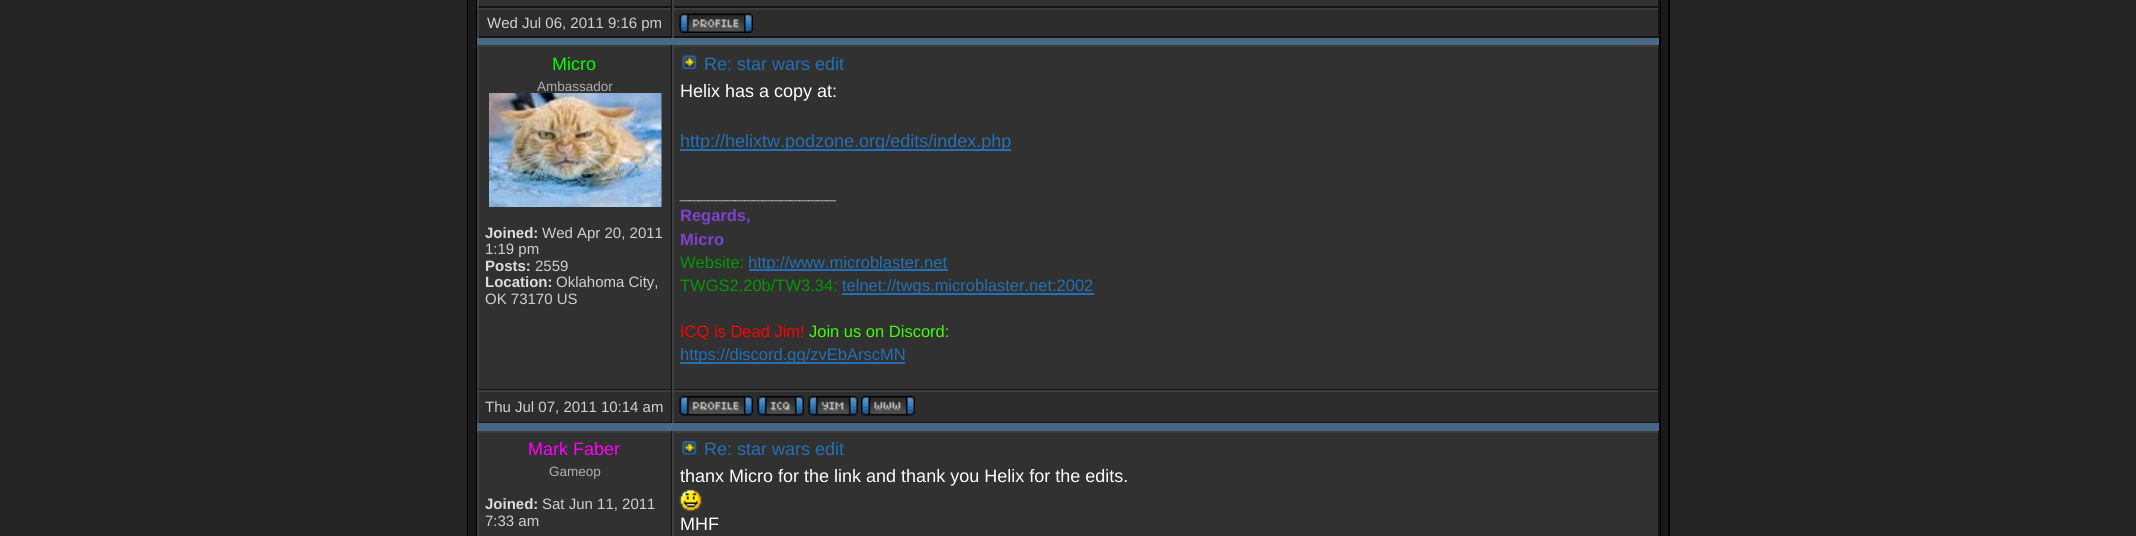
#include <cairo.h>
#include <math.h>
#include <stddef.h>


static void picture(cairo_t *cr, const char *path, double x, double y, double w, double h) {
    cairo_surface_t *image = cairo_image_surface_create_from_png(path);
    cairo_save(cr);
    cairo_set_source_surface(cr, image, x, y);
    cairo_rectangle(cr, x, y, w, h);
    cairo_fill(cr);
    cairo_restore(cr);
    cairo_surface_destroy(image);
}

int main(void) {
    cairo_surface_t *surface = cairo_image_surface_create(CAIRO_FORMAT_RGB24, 2136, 536);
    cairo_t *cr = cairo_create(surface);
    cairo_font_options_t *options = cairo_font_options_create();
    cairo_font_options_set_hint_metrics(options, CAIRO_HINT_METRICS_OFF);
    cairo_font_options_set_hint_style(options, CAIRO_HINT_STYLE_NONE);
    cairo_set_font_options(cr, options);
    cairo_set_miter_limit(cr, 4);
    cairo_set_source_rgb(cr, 0.141, 0.141, 0.141);
    cairo_paint(cr);
    cairo_set_source_rgb(cr, 0, 0, 0);
    cairo_rectangle(cr, 1668, 0, 2, 536);
    cairo_fill(cr);
    cairo_rectangle(cr, 467, 0, 1, 536);
    cairo_fill(cr);
    cairo_set_source_rgb(cr, 0.098, 0.098, 0.098);
    cairo_rectangle(cr, 468, 0, 1200, 536);
    cairo_fill(cr);
    cairo_rectangle(cr, 477, -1, 1183, 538);
    cairo_set_source_rgb(cr, 0, 0, 0);
    cairo_stroke(cr);
    cairo_set_source_rgb(cr, 0.192, 0.192, 0.192);
    cairo_rectangle(cr, 477, 0, 1182, 6);
    cairo_fill(cr);
    cairo_set_source_rgb(cr, 0.071, 0.071, 0.071);
    cairo_rectangle(cr, 671, 0, 1, 8);
    cairo_fill(cr);
    cairo_set_source_rgb(cr, 0.075, 0.075, 0.075);
    cairo_rectangle(cr, 477, 6, 195, 2);
    cairo_fill(cr);
    cairo_set_source_rgb(cr, 0.251, 0.251, 0.251);
    cairo_rectangle(cr, 477, 0, 2, 8);
    cairo_fill(cr);
    cairo_set_source_rgb(cr, 0.071, 0.071, 0.071);
    cairo_rectangle(cr, 1658, 0, 2, 8);
    cairo_fill(cr);
    cairo_set_source_rgb(cr, 0.075, 0.075, 0.075);
    cairo_rectangle(cr, 672, 6, 987, 2);
    cairo_fill(cr);
    cairo_set_source_rgb(cr, 0.251, 0.251, 0.251);
    cairo_rectangle(cr, 672, 0, 2, 8);
    cairo_fill(cr);
    cairo_set_source_rgb(cr, 0.176, 0.176, 0.176);
    cairo_rectangle(cr, 479, 10, 192, 26);
    cairo_fill(cr);
    cairo_set_source_rgb(cr, 0.235, 0.235, 0.235);
    cairo_rectangle(cr, 477, 8, 1182, 2);
    cairo_fill(cr);
    cairo_set_source_rgb(cr, 0.071, 0.071, 0.071);
    cairo_rectangle(cr, 671, 8, 1, 30);
    cairo_fill(cr);
    cairo_set_source_rgb(cr, 0.075, 0.075, 0.075);
    cairo_rectangle(cr, 477, 36, 195, 2);
    cairo_fill(cr);
    cairo_set_source_rgb(cr, 0.251, 0.251, 0.251);
    cairo_rectangle(cr, 477, 8, 2, 30);
    cairo_fill(cr);
    cairo_select_font_face(cr, "Liberation Sans", CAIRO_FONT_SLANT_NORMAL, CAIRO_FONT_WEIGHT_NORMAL);
    cairo_set_font_size(cr, 15);
    cairo_set_source_rgb(cr, 0.816, 0.816, 0.816);
    cairo_move_to(cr, 487, 28);
    cairo_show_text(cr, "Wed Jul 06, 2011 9:16 pm");
    cairo_set_source_rgb(cr, 0.176, 0.176, 0.176);
    cairo_rectangle(cr, 674, 10, 984, 26);
    cairo_fill(cr);
    cairo_set_source_rgb(cr, 0.071, 0.071, 0.071);
    cairo_rectangle(cr, 1658, 8, 2, 30);
    cairo_fill(cr);
    cairo_set_source_rgb(cr, 0.075, 0.075, 0.075);
    cairo_rectangle(cr, 672, 36, 987, 2);
    cairo_fill(cr);
    cairo_set_source_rgb(cr, 0.251, 0.251, 0.251);
    cairo_rectangle(cr, 672, 8, 2, 30);
    cairo_fill(cr);
    picture(cr, "img1.png", 679, 13, 74, 20);
    cairo_set_source_rgb(cr, 0.29, 0.404, 0.525);
    cairo_rectangle(cr, 477, 38, 1182, 7);
    cairo_fill(cr);
    cairo_set_source_rgb(cr, 0.192, 0.192, 0.192);
    cairo_rectangle(cr, 479, 47, 192, 342);
    cairo_fill(cr);
    cairo_set_source_rgb(cr, 0.235, 0.235, 0.235);
    cairo_rectangle(cr, 477, 45, 1182, 2);
    cairo_fill(cr);
    cairo_set_source_rgb(cr, 0.071, 0.071, 0.071);
    cairo_rectangle(cr, 671, 45, 1, 345);
    cairo_fill(cr);
    cairo_set_source_rgb(cr, 0.075, 0.075, 0.075);
    cairo_rectangle(cr, 477, 389, 195, 1);
    cairo_fill(cr);
    cairo_set_source_rgb(cr, 0.251, 0.251, 0.251);
    cairo_rectangle(cr, 477, 45, 2, 345);
    cairo_fill(cr);
    cairo_set_font_size(cr, 18);
    cairo_set_source_rgb(cr, 0, 1, 0);
    cairo_move_to(cr, 552, 70);
    cairo_show_text(cr, "Micro");
    cairo_set_font_size(cr, 13.5);
    cairo_set_source_rgb(cr, 0.69, 0.69, 0.69);
    cairo_move_to(cr, 537, 91);
    cairo_show_text(cr, "Ambassador");
    picture(cr, "img2.png", 489, 93, 173, 114);
    cairo_select_font_face(cr, "Liberation Sans", CAIRO_FONT_SLANT_NORMAL, CAIRO_FONT_WEIGHT_BOLD);
    cairo_set_font_size(cr, 15);
    cairo_set_source_rgb(cr, 0.867, 0.867, 0.867);
    cairo_move_to(cr, 485, 238);
    cairo_show_text(cr, "Joined:");
    cairo_select_font_face(cr, "Liberation Sans", CAIRO_FONT_SLANT_NORMAL, CAIRO_FONT_WEIGHT_NORMAL);
    cairo_set_source_rgb(cr, 0.816, 0.816, 0.816);
    cairo_move_to(cr, 542, 238);
    cairo_show_text(cr, "Wed Apr 20, 2011");
    cairo_move_to(cr, 485, 254);
    cairo_show_text(cr, "1:19 pm");
    cairo_select_font_face(cr, "Liberation Sans", CAIRO_FONT_SLANT_NORMAL, CAIRO_FONT_WEIGHT_BOLD);
    cairo_set_source_rgb(cr, 0.867, 0.867, 0.867);
    cairo_move_to(cr, 485, 271);
    cairo_show_text(cr, "Posts:");
    cairo_select_font_face(cr, "Liberation Sans", CAIRO_FONT_SLANT_NORMAL, CAIRO_FONT_WEIGHT_NORMAL);
    cairo_set_source_rgb(cr, 0.816, 0.816, 0.816);
    cairo_move_to(cr, 535, 271);
    cairo_show_text(cr, "2559");
    cairo_select_font_face(cr, "Liberation Sans", CAIRO_FONT_SLANT_NORMAL, CAIRO_FONT_WEIGHT_BOLD);
    cairo_set_source_rgb(cr, 0.867, 0.867, 0.867);
    cairo_move_to(cr, 485, 287);
    cairo_show_text(cr, "Location:");
    cairo_select_font_face(cr, "Liberation Sans", CAIRO_FONT_SLANT_NORMAL, CAIRO_FONT_WEIGHT_NORMAL);
    cairo_set_source_rgb(cr, 0.816, 0.816, 0.816);
    cairo_move_to(cr, 556, 287);
    cairo_show_text(cr, "Oklahoma City,");
    cairo_move_to(cr, 485, 304);
    cairo_show_text(cr, "OK 73170 US");
    cairo_set_source_rgb(cr, 0.192, 0.192, 0.192);
    cairo_rectangle(cr, 674, 47, 984, 342);
    cairo_fill(cr);
    cairo_set_source_rgb(cr, 0.071, 0.071, 0.071);
    cairo_rectangle(cr, 1658, 45, 2, 345);
    cairo_fill(cr);
    cairo_set_source_rgb(cr, 0.075, 0.075, 0.075);
    cairo_rectangle(cr, 672, 389, 987, 1);
    cairo_fill(cr);
    cairo_set_source_rgb(cr, 0.251, 0.251, 0.251);
    cairo_rectangle(cr, 672, 45, 2, 345);
    cairo_fill(cr);
    picture(cr, "img3.png", 682, 55, 15, 14);
    cairo_set_font_size(cr, 18);
    cairo_set_source_rgb(cr, 0.137, 0.439, 0.714);
    cairo_move_to(cr, 704, 70);
    cairo_show_text(cr, "Re: star wars edit");
    cairo_set_source_rgb(cr, 1, 1, 1);
    cairo_move_to(cr, 680, 97);
    cairo_show_text(cr, "Helix has a copy at:");
    cairo_set_source_rgb(cr, 0.137, 0.439, 0.714);
    cairo_rectangle(cr, 680, 149, 331, 2);
    cairo_fill(cr);
    cairo_move_to(cr, 680, 147);
    cairo_show_text(cr, "http://helixtw.podzone.org/edits/index.php");
    cairo_set_font_size(cr, 16.5);
    cairo_set_source_rgb(cr, 0.667, 0.667, 0.667);
    cairo_move_to(cr, 680, 198);
    cairo_show_text(cr, "_________________");
    cairo_select_font_face(cr, "Liberation Sans", CAIRO_FONT_SLANT_NORMAL, CAIRO_FONT_WEIGHT_BOLD);
    cairo_set_source_rgb(cr, 0.494, 0.259, 0.812);
    cairo_move_to(cr, 680, 221);
    cairo_show_text(cr, "Regards,");
    cairo_move_to(cr, 680, 245);
    cairo_show_text(cr, "Micro");
    cairo_select_font_face(cr, "Liberation Sans", CAIRO_FONT_SLANT_NORMAL, CAIRO_FONT_WEIGHT_NORMAL);
    cairo_set_source_rgb(cr, 0, 0.6, 0);
    cairo_move_to(cr, 680, 268);
    cairo_show_text(cr, "Website:");
    cairo_set_source_rgb(cr, 0.137, 0.439, 0.714);
    cairo_rectangle(cr, 749, 269, 199, 2);
    cairo_fill(cr);
    cairo_move_to(cr, 748, 268);
    cairo_show_text(cr, "http://www.microblaster.net");
    cairo_set_source_rgb(cr, 0, 0.6, 0);
    cairo_move_to(cr, 680, 291);
    cairo_show_text(cr, "TWGS2.20b/TW3.34:");
    cairo_set_source_rgb(cr, 0.137, 0.439, 0.714);
    cairo_rectangle(cr, 842, 293, 252, 2);
    cairo_fill(cr);
    cairo_move_to(cr, 842, 291);
    cairo_show_text(cr, "telnet://twgs.microblaster.net:2002");
    cairo_set_source_rgb(cr, 1, 0, 0);
    cairo_move_to(cr, 680, 337);
    cairo_show_text(cr, "ICQ is Dead Jim!");
    cairo_set_source_rgb(cr, 0.251, 1, 0);
    cairo_move_to(cr, 809, 337);
    cairo_show_text(cr, "Join us on Discord:");
    cairo_set_source_rgb(cr, 0.137, 0.439, 0.714);
    cairo_rectangle(cr, 680, 362, 225, 2);
    cairo_fill(cr);
    cairo_move_to(cr, 680, 360);
    cairo_show_text(cr, "https://discord.gg/zvEbArscMN");
    cairo_set_source_rgb(cr, 0.176, 0.176, 0.176);
    cairo_rectangle(cr, 479, 392, 192, 30);
    cairo_fill(cr);
    cairo_set_source_rgb(cr, 0.235, 0.235, 0.235);
    cairo_rectangle(cr, 477, 390, 1182, 2);
    cairo_fill(cr);
    cairo_set_source_rgb(cr, 0.071, 0.071, 0.071);
    cairo_rectangle(cr, 671, 390, 1, 33);
    cairo_fill(cr);
    cairo_set_source_rgb(cr, 0.075, 0.075, 0.075);
    cairo_rectangle(cr, 477, 422, 195, 1);
    cairo_fill(cr);
    cairo_set_source_rgb(cr, 0.251, 0.251, 0.251);
    cairo_rectangle(cr, 477, 390, 2, 33);
    cairo_fill(cr);
    cairo_set_font_size(cr, 15);
    cairo_set_source_rgb(cr, 0.816, 0.816, 0.816);
    cairo_move_to(cr, 485, 412);
    cairo_show_text(cr, "Thu Jul 07, 2011 10:14 am");
    cairo_set_source_rgb(cr, 0.176, 0.176, 0.176);
    cairo_rectangle(cr, 674, 392, 984, 30);
    cairo_fill(cr);
    cairo_set_source_rgb(cr, 0.071, 0.071, 0.071);
    cairo_rectangle(cr, 1658, 390, 2, 33);
    cairo_fill(cr);
    cairo_set_source_rgb(cr, 0.075, 0.075, 0.075);
    cairo_rectangle(cr, 672, 422, 987, 1);
    cairo_fill(cr);
    cairo_set_source_rgb(cr, 0.251, 0.251, 0.251);
    cairo_rectangle(cr, 672, 390, 2, 33);
    cairo_fill(cr);
    picture(cr, "img4.png", 679, 396, 74, 20);
    picture(cr, "img5.png", 757, 396, 47, 20);
    picture(cr, "img6.png", 808, 396, 50, 20);
    picture(cr, "img7.png", 861, 396, 54, 20);
    cairo_set_source_rgb(cr, 0.29, 0.404, 0.525);
    cairo_rectangle(cr, 477, 423, 1182, 8);
    cairo_fill(cr);
    cairo_set_source_rgb(cr, 0.192, 0.192, 0.192);
    cairo_rectangle(cr, 479, 433, 192, 103);
    cairo_fill(cr);
    cairo_set_source_rgb(cr, 0.235, 0.235, 0.235);
    cairo_rectangle(cr, 477, 431, 1182, 2);
    cairo_fill(cr);
    cairo_set_source_rgb(cr, 0.071, 0.071, 0.071);
    cairo_rectangle(cr, 671, 431, 1, 105);
    cairo_fill(cr);
    cairo_set_source_rgb(cr, 0.251, 0.251, 0.251);
    cairo_rectangle(cr, 477, 431, 2, 105);
    cairo_fill(cr);
    cairo_set_font_size(cr, 18);
    cairo_set_source_rgb(cr, 1, 0, 1);
    cairo_move_to(cr, 528, 455);
    cairo_show_text(cr, "Mark Faber");
    cairo_set_font_size(cr, 13.5);
    cairo_set_source_rgb(cr, 0.69, 0.69, 0.69);
    cairo_move_to(cr, 549, 476);
    cairo_show_text(cr, "Gameop");
    cairo_select_font_face(cr, "Liberation Sans", CAIRO_FONT_SLANT_NORMAL, CAIRO_FONT_WEIGHT_BOLD);
    cairo_set_font_size(cr, 15);
    cairo_set_source_rgb(cr, 0.867, 0.867, 0.867);
    cairo_move_to(cr, 485, 509);
    cairo_show_text(cr, "Joined:");
    cairo_select_font_face(cr, "Liberation Sans", CAIRO_FONT_SLANT_NORMAL, CAIRO_FONT_WEIGHT_NORMAL);
    cairo_set_source_rgb(cr, 0.816, 0.816, 0.816);
    cairo_move_to(cr, 542, 509);
    cairo_show_text(cr, "Sat Jun 11, 2011");
    cairo_move_to(cr, 485, 526);
    cairo_show_text(cr, "7:33 am");
    cairo_set_source_rgb(cr, 0.192, 0.192, 0.192);
    cairo_rectangle(cr, 674, 433, 984, 103);
    cairo_fill(cr);
    cairo_set_source_rgb(cr, 0.071, 0.071, 0.071);
    cairo_rectangle(cr, 1658, 431, 2, 105);
    cairo_fill(cr);
    cairo_set_source_rgb(cr, 0.251, 0.251, 0.251);
    cairo_rectangle(cr, 672, 431, 2, 105);
    cairo_fill(cr);
    picture(cr, "img8.png", 682, 441, 15, 14);
    cairo_set_font_size(cr, 18);
    cairo_set_source_rgb(cr, 0.137, 0.439, 0.714);
    cairo_move_to(cr, 704, 455);
    cairo_show_text(cr, "Re: star wars edit");
    cairo_set_source_rgb(cr, 1, 1, 1);
    cairo_move_to(cr, 680, 482);
    cairo_show_text(cr, "thanx Micro for the link and thank you Helix for the edits.");
    picture(cr, "img9.png", 679, 489, 23, 23);
    cairo_move_to(cr, 680, 530);
    cairo_show_text(cr, "MHF");
    cairo_surface_write_to_png(surface, "page.png");
    cairo_font_options_destroy(options);
    cairo_destroy(cr);
    cairo_surface_destroy(surface);
    return 0;
}
